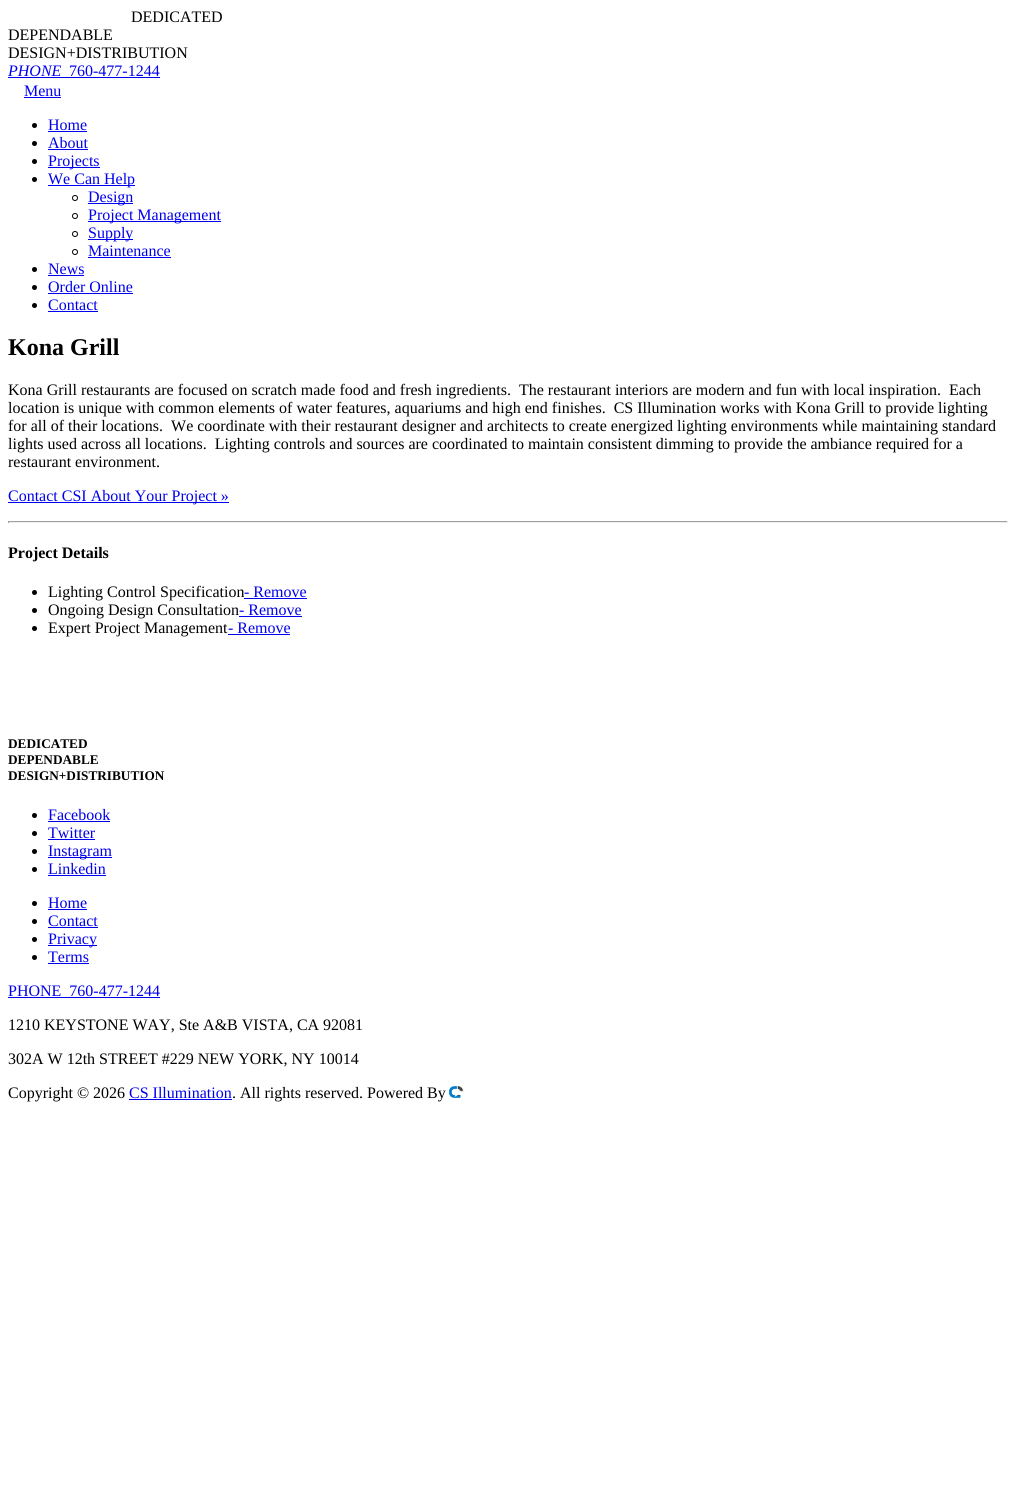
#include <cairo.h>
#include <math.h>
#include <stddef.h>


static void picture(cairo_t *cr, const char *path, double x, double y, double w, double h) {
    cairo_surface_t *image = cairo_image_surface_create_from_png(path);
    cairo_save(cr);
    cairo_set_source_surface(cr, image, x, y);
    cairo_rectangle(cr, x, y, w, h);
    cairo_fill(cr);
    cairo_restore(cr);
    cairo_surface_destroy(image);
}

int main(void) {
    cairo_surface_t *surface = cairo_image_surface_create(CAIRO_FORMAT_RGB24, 1031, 1510);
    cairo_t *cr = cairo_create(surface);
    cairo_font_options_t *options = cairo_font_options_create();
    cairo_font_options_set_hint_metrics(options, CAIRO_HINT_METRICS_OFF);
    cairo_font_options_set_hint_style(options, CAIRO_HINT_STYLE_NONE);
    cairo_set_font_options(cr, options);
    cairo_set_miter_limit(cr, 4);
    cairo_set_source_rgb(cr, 1, 1, 1);
    cairo_paint(cr);
    cairo_select_font_face(cr, "Liberation Serif", CAIRO_FONT_SLANT_NORMAL, CAIRO_FONT_WEIGHT_NORMAL);
    cairo_set_font_size(cr, 16);
    cairo_set_source_rgb(cr, 0, 0, 0);
    cairo_move_to(cr, 131, 22);
    cairo_show_text(cr, "DEDICATED");
    cairo_move_to(cr, 8, 40);
    cairo_show_text(cr, "DEPENDABLE");
    cairo_move_to(cr, 8, 58);
    cairo_show_text(cr, "DESIGN+DISTRIBUTION");
    cairo_select_font_face(cr, "Liberation Serif", CAIRO_FONT_SLANT_ITALIC, CAIRO_FONT_WEIGHT_NORMAL);
    cairo_set_source_rgb(cr, 0, 0, 0.933);
    cairo_move_to(cr, 8, 76);
    cairo_show_text(cr, "PHONE");
    cairo_rectangle(cr, 8, 77, 152, 1);
    cairo_fill(cr);
    cairo_select_font_face(cr, "Liberation Serif", CAIRO_FONT_SLANT_NORMAL, CAIRO_FONT_WEIGHT_NORMAL);
    cairo_move_to(cr, 69, 76);
    cairo_show_text(cr, "760-477-1244");
    cairo_move_to(cr, 24, 96);
    cairo_show_text(cr, "Menu");
    cairo_rectangle(cr, 24, 97, 37, 1);
    cairo_fill(cr);
    cairo_set_source_rgb(cr, 0, 0, 0);
    cairo_arc(cr, 34.5, 125.5, 2.5, 0, 2 * M_PI);
    cairo_fill(cr);
    cairo_set_source_rgb(cr, 0, 0, 0.933);
    cairo_move_to(cr, 48, 130);
    cairo_show_text(cr, "Home");
    cairo_rectangle(cr, 48, 131, 39, 1);
    cairo_fill(cr);
    cairo_set_source_rgb(cr, 0, 0, 0);
    cairo_arc(cr, 34.5, 143.5, 2.5, 0, 2 * M_PI);
    cairo_fill(cr);
    cairo_set_source_rgb(cr, 0, 0, 0.933);
    cairo_move_to(cr, 48, 148);
    cairo_show_text(cr, "About");
    cairo_rectangle(cr, 48, 149, 40, 1);
    cairo_fill(cr);
    cairo_set_source_rgb(cr, 0, 0, 0);
    cairo_arc(cr, 34.5, 161.5, 2.5, 0, 2 * M_PI);
    cairo_fill(cr);
    cairo_set_source_rgb(cr, 0, 0, 0.933);
    cairo_rectangle(cr, 48, 167, 52, 1);
    cairo_fill(cr);
    cairo_move_to(cr, 48, 166);
    cairo_show_text(cr, "Projects");
    cairo_set_source_rgb(cr, 0, 0, 0);
    cairo_new_path(cr);
    cairo_arc(cr, 34.5, 179.5, 2.5, 0, 2 * M_PI);
    cairo_fill(cr);
    cairo_set_source_rgb(cr, 0, 0, 0.933);
    cairo_rectangle(cr, 48, 185, 87, 1);
    cairo_fill(cr);
    cairo_move_to(cr, 48, 184);
    cairo_show_text(cr, "We Can Help");
    cairo_new_path(cr);
    cairo_arc(cr, 75, 198, 2.5, 0, 2 * M_PI);
    cairo_set_source_rgb(cr, 0, 0, 0);
    cairo_set_line_width(cr, 1);
    cairo_stroke(cr);
    cairo_set_source_rgb(cr, 0, 0, 0.933);
    cairo_rectangle(cr, 88, 203, 45, 1);
    cairo_fill(cr);
    cairo_move_to(cr, 88, 202);
    cairo_show_text(cr, "Design");
    cairo_new_path(cr);
    cairo_arc(cr, 75, 216, 2.5, 0, 2 * M_PI);
    cairo_set_source_rgb(cr, 0, 0, 0);
    cairo_stroke(cr);
    cairo_set_source_rgb(cr, 0, 0, 0.933);
    cairo_rectangle(cr, 88, 221, 133, 1);
    cairo_fill(cr);
    cairo_move_to(cr, 88, 220);
    cairo_show_text(cr, "Project Management");
    cairo_new_path(cr);
    cairo_arc(cr, 75, 234, 2.5, 0, 2 * M_PI);
    cairo_set_source_rgb(cr, 0, 0, 0);
    cairo_stroke(cr);
    cairo_set_source_rgb(cr, 0, 0, 0.933);
    cairo_rectangle(cr, 88, 239, 45, 1);
    cairo_fill(cr);
    cairo_move_to(cr, 88, 238);
    cairo_show_text(cr, "Supply");
    cairo_new_path(cr);
    cairo_arc(cr, 75, 252, 2.5, 0, 2 * M_PI);
    cairo_set_source_rgb(cr, 0, 0, 0);
    cairo_stroke(cr);
    cairo_set_source_rgb(cr, 0, 0, 0.933);
    cairo_move_to(cr, 88, 256);
    cairo_show_text(cr, "Maintenance");
    cairo_rectangle(cr, 88, 257, 83, 1);
    cairo_fill(cr);
    cairo_set_source_rgb(cr, 0, 0, 0);
    cairo_arc(cr, 34.5, 269.5, 2.5, 0, 2 * M_PI);
    cairo_fill(cr);
    cairo_set_source_rgb(cr, 0, 0, 0.933);
    cairo_move_to(cr, 48, 274);
    cairo_show_text(cr, "News");
    cairo_rectangle(cr, 48, 275, 36, 1);
    cairo_fill(cr);
    cairo_set_source_rgb(cr, 0, 0, 0);
    cairo_arc(cr, 34.5, 287.5, 2.5, 0, 2 * M_PI);
    cairo_fill(cr);
    cairo_set_source_rgb(cr, 0, 0, 0.933);
    cairo_move_to(cr, 48, 292);
    cairo_show_text(cr, "Order Online");
    cairo_rectangle(cr, 48, 293, 85, 1);
    cairo_fill(cr);
    cairo_set_source_rgb(cr, 0, 0, 0);
    cairo_arc(cr, 34.5, 305.5, 2.5, 0, 2 * M_PI);
    cairo_fill(cr);
    cairo_set_source_rgb(cr, 0, 0, 0.933);
    cairo_move_to(cr, 48, 310);
    cairo_show_text(cr, "Contact");
    cairo_rectangle(cr, 48, 311, 50, 1);
    cairo_fill(cr);
    cairo_select_font_face(cr, "Liberation Serif", CAIRO_FONT_SLANT_NORMAL, CAIRO_FONT_WEIGHT_BOLD);
    cairo_set_font_size(cr, 24);
    cairo_set_source_rgb(cr, 0, 0, 0);
    cairo_move_to(cr, 8, 355);
    cairo_show_text(cr, "Kona Grill");
    cairo_select_font_face(cr, "Liberation Serif", CAIRO_FONT_SLANT_NORMAL, CAIRO_FONT_WEIGHT_NORMAL);
    cairo_set_font_size(cr, 16);
    cairo_move_to(cr, 8, 395);
    cairo_show_text(cr, "Kona Grill restaurants are focused on scratch made food and fresh ingredients.  The restaurant interiors are modern and fun with local inspiration.  Each");
    cairo_move_to(cr, 8, 413);
    cairo_show_text(cr, "location is unique with common elements of water features, aquariums and high end finishes.  CS Illumination works with Kona Grill to provide lighting");
    cairo_move_to(cr, 8, 431);
    cairo_show_text(cr, "for all of their locations.  We coordinate with their restaurant designer and architects to create energized lighting environments while maintaining standard");
    cairo_move_to(cr, 8, 449);
    cairo_show_text(cr, "lights used across all locations.  Lighting controls and sources are coordinated to maintain consistent dimming to provide the ambiance required for a");
    cairo_move_to(cr, 8, 467);
    cairo_show_text(cr, "restaurant environment.");
    cairo_set_source_rgb(cr, 0, 0, 0.933);
    cairo_rectangle(cr, 8, 502, 221, 1);
    cairo_fill(cr);
    cairo_move_to(cr, 8, 501);
    cairo_show_text(cr, "Contact CSI About Your Project »");
    cairo_set_source_rgb(cr, 0.624, 0.624, 0.624);
    cairo_rectangle(cr, 8, 521, 1000, 1);
    cairo_fill(cr);
    cairo_set_source_rgb(cr, 0.933, 0.933, 0.933);
    cairo_rectangle(cr, 1007, 521, 1, 2);
    cairo_fill(cr);
    cairo_rectangle(cr, 8, 522, 1000, 1);
    cairo_fill(cr);
    cairo_set_source_rgb(cr, 0.624, 0.624, 0.624);
    cairo_rectangle(cr, 8, 521, 1, 2);
    cairo_fill(cr);
    cairo_select_font_face(cr, "Liberation Serif", CAIRO_FONT_SLANT_NORMAL, CAIRO_FONT_WEIGHT_BOLD);
    cairo_set_source_rgb(cr, 0, 0, 0);
    cairo_move_to(cr, 8, 558);
    cairo_show_text(cr, "Project Details");
    cairo_new_path(cr);
    cairo_arc(cr, 34.5, 592.5, 2.5, 0, 2 * M_PI);
    cairo_fill(cr);
    cairo_select_font_face(cr, "Liberation Serif", CAIRO_FONT_SLANT_NORMAL, CAIRO_FONT_WEIGHT_NORMAL);
    cairo_move_to(cr, 48, 597);
    cairo_show_text(cr, "Lighting Control Specification");
    cairo_set_source_rgb(cr, 0, 0, 0.933);
    cairo_move_to(cr, 244, 597);
    cairo_show_text(cr, "- Remove");
    cairo_rectangle(cr, 244, 598, 63, 1);
    cairo_fill(cr);
    cairo_set_source_rgb(cr, 0, 0, 0);
    cairo_arc(cr, 34.5, 610.5, 2.5, 0, 2 * M_PI);
    cairo_fill(cr);
    cairo_move_to(cr, 48, 615);
    cairo_show_text(cr, "Ongoing Design Consultation");
    cairo_set_source_rgb(cr, 0, 0, 0.933);
    cairo_move_to(cr, 239, 615);
    cairo_show_text(cr, "- Remove");
    cairo_rectangle(cr, 239, 616, 63, 1);
    cairo_fill(cr);
    cairo_set_source_rgb(cr, 0, 0, 0);
    cairo_arc(cr, 34.5, 628.5, 2.5, 0, 2 * M_PI);
    cairo_fill(cr);
    cairo_move_to(cr, 48, 633);
    cairo_show_text(cr, "Expert Project Management");
    cairo_set_source_rgb(cr, 0, 0, 0.933);
    cairo_move_to(cr, 228, 633);
    cairo_show_text(cr, "- Remove");
    cairo_rectangle(cr, 228, 634, 62, 1);
    cairo_fill(cr);
    cairo_select_font_face(cr, "Liberation Serif", CAIRO_FONT_SLANT_NORMAL, CAIRO_FONT_WEIGHT_BOLD);
    cairo_set_font_size(cr, 13.25);
    cairo_set_source_rgb(cr, 0, 0, 0);
    cairo_move_to(cr, 8, 748);
    cairo_show_text(cr, "DEDICATED");
    cairo_move_to(cr, 8, 764);
    cairo_show_text(cr, "DEPENDABLE");
    cairo_move_to(cr, 8, 780);
    cairo_show_text(cr, "DESIGN+DISTRIBUTION");
    cairo_new_path(cr);
    cairo_arc(cr, 34.5, 815.5, 2.5, 0, 2 * M_PI);
    cairo_fill(cr);
    cairo_select_font_face(cr, "Liberation Serif", CAIRO_FONT_SLANT_NORMAL, CAIRO_FONT_WEIGHT_NORMAL);
    cairo_set_font_size(cr, 16);
    cairo_set_source_rgb(cr, 0, 0, 0.933);
    cairo_move_to(cr, 48, 820);
    cairo_show_text(cr, "Facebook");
    cairo_rectangle(cr, 48, 821, 62, 1);
    cairo_fill(cr);
    cairo_set_source_rgb(cr, 0, 0, 0);
    cairo_arc(cr, 34.5, 833.5, 2.5, 0, 2 * M_PI);
    cairo_fill(cr);
    cairo_set_source_rgb(cr, 0, 0, 0.933);
    cairo_move_to(cr, 48, 838);
    cairo_show_text(cr, "Twitter");
    cairo_rectangle(cr, 48, 839, 47, 1);
    cairo_fill(cr);
    cairo_set_source_rgb(cr, 0, 0, 0);
    cairo_arc(cr, 34.5, 851.5, 2.5, 0, 2 * M_PI);
    cairo_fill(cr);
    cairo_set_source_rgb(cr, 0, 0, 0.933);
    cairo_rectangle(cr, 48, 857, 64, 1);
    cairo_fill(cr);
    cairo_move_to(cr, 48, 856);
    cairo_show_text(cr, "Instagram");
    cairo_set_source_rgb(cr, 0, 0, 0);
    cairo_new_path(cr);
    cairo_arc(cr, 34.5, 869.5, 2.5, 0, 2 * M_PI);
    cairo_fill(cr);
    cairo_set_source_rgb(cr, 0, 0, 0.933);
    cairo_move_to(cr, 48, 874);
    cairo_show_text(cr, "Linkedin");
    cairo_rectangle(cr, 48, 875, 58, 1);
    cairo_fill(cr);
    cairo_set_source_rgb(cr, 0, 0, 0);
    cairo_arc(cr, 34.5, 903.5, 2.5, 0, 2 * M_PI);
    cairo_fill(cr);
    cairo_set_source_rgb(cr, 0, 0, 0.933);
    cairo_move_to(cr, 48, 908);
    cairo_show_text(cr, "Home");
    cairo_rectangle(cr, 48, 909, 39, 1);
    cairo_fill(cr);
    cairo_set_source_rgb(cr, 0, 0, 0);
    cairo_arc(cr, 34.5, 921.5, 2.5, 0, 2 * M_PI);
    cairo_fill(cr);
    cairo_set_source_rgb(cr, 0, 0, 0.933);
    cairo_move_to(cr, 48, 926);
    cairo_show_text(cr, "Contact");
    cairo_rectangle(cr, 48, 927, 50, 1);
    cairo_fill(cr);
    cairo_set_source_rgb(cr, 0, 0, 0);
    cairo_arc(cr, 34.5, 939.5, 2.5, 0, 2 * M_PI);
    cairo_fill(cr);
    cairo_set_source_rgb(cr, 0, 0, 0.933);
    cairo_rectangle(cr, 48, 945, 49, 1);
    cairo_fill(cr);
    cairo_move_to(cr, 48, 944);
    cairo_show_text(cr, "Privacy");
    cairo_set_source_rgb(cr, 0, 0, 0);
    cairo_new_path(cr);
    cairo_arc(cr, 34.5, 957.5, 2.5, 0, 2 * M_PI);
    cairo_fill(cr);
    cairo_set_source_rgb(cr, 0, 0, 0.933);
    cairo_move_to(cr, 48, 962);
    cairo_show_text(cr, "Terms");
    cairo_rectangle(cr, 48, 963, 41, 1);
    cairo_fill(cr);
    cairo_move_to(cr, 8, 996);
    cairo_show_text(cr, "PHONE  760-477-1244");
    cairo_rectangle(cr, 8, 997, 152, 1);
    cairo_fill(cr);
    cairo_set_source_rgb(cr, 0, 0, 0);
    cairo_move_to(cr, 8, 1030);
    cairo_show_text(cr, "1210 KEYSTONE WAY, Ste A&B VISTA, CA 92081");
    cairo_move_to(cr, 8, 1064);
    cairo_show_text(cr, "302A W 12th STREET #229 NEW YORK, NY 10014");
    cairo_move_to(cr, 8, 1098);
    cairo_show_text(cr, "Copyright © 2026");
    cairo_set_source_rgb(cr, 0, 0, 0.933);
    cairo_move_to(cr, 129, 1098);
    cairo_show_text(cr, "CS Illumination");
    cairo_set_source_rgb(cr, 0, 0, 0);
    cairo_move_to(cr, 232, 1098);
    cairo_show_text(cr, ". All rights reserved. Powered By");
    cairo_set_source_rgb(cr, 0, 0, 0.933);
    cairo_rectangle(cr, 129, 1099, 103, 1);
    cairo_fill(cr);
    picture(cr, "img1.png", 449, 1086, 15, 12);
    cairo_surface_write_to_png(surface, "page.png");
    cairo_font_options_destroy(options);
    cairo_destroy(cr);
    cairo_surface_destroy(surface);
    return 0;
}
